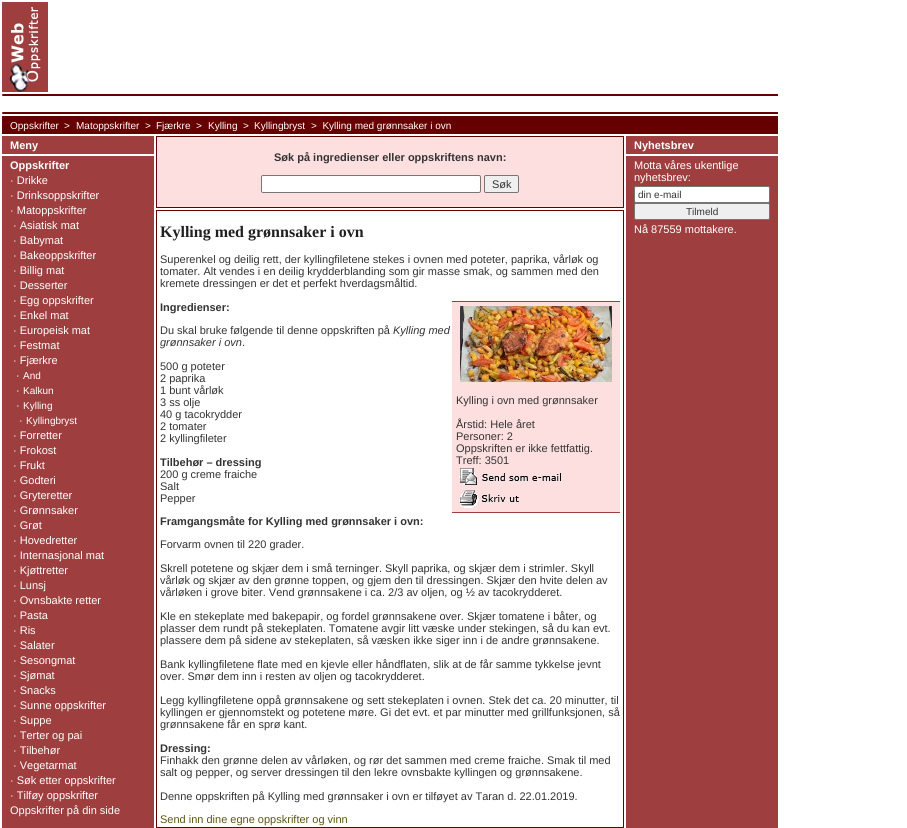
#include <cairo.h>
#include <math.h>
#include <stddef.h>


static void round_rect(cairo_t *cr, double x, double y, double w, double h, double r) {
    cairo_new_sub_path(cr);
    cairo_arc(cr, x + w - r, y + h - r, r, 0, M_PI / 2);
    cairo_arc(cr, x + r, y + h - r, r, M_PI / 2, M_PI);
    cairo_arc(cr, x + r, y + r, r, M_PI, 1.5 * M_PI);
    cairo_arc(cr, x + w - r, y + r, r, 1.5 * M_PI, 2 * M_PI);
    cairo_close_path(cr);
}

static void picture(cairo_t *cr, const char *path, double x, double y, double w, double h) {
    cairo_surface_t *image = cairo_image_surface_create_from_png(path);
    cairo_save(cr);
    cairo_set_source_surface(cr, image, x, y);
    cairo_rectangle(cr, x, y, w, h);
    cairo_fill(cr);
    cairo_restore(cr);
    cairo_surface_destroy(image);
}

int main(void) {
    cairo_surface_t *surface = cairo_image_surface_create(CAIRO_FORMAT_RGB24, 907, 828);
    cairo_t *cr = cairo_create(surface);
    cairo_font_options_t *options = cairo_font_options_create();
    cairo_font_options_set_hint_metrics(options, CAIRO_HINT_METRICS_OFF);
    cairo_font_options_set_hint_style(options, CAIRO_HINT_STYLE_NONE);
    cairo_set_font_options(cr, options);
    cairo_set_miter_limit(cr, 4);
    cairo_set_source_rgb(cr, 1, 1, 1);
    cairo_paint(cr);
    picture(cr, "img1.png", 2, 2, 46, 90);
    cairo_set_source_rgb(cr, 0.4, 0, 0);
    cairo_rectangle(cr, 3, 94, 775, 20);
    cairo_fill(cr);
    cairo_set_source_rgb(cr, 0.62, 0.243, 0.243);
    cairo_rectangle(cr, 2, 94, 1, 2);
    cairo_fill(cr);
    cairo_set_source_rgb(cr, 1, 1, 1);
    cairo_rectangle(cr, 3, 96, 775, 16);
    cairo_fill(cr);
    cairo_set_source_rgb(cr, 0.62, 0.243, 0.243);
    cairo_rectangle(cr, 2, 112, 1, 2);
    cairo_fill(cr);
    cairo_set_source_rgb(cr, 0.4, 0, 0);
    cairo_rectangle(cr, 2, 116, 776, 18);
    cairo_fill(cr);
    cairo_select_font_face(cr, "Liberation Sans", CAIRO_FONT_SLANT_NORMAL, CAIRO_FONT_WEIGHT_NORMAL);
    cairo_set_font_size(cr, 10);
    cairo_set_source_rgb(cr, 1, 1, 1);
    cairo_move_to(cr, 10, 129);
    cairo_show_text(cr, "Oppskrifter");
    cairo_move_to(cr, 64, 129);
    cairo_show_text(cr, ">");
    cairo_move_to(cr, 76, 129);
    cairo_show_text(cr, "Matoppskrifter");
    cairo_move_to(cr, 145, 129);
    cairo_show_text(cr, ">");
    cairo_move_to(cr, 156, 129);
    cairo_show_text(cr, "Fjærkre");
    cairo_move_to(cr, 196, 129);
    cairo_show_text(cr, ">");
    cairo_move_to(cr, 208, 129);
    cairo_show_text(cr, "Kylling");
    cairo_move_to(cr, 243, 129);
    cairo_show_text(cr, ">");
    cairo_move_to(cr, 254, 129);
    cairo_show_text(cr, "Kyllingbryst");
    cairo_move_to(cr, 311, 129);
    cairo_show_text(cr, ">  Kylling med grønnsaker i ovn");
    picture(cr, "img2.png", 2, 136, 776, 692);
    cairo_select_font_face(cr, "Liberation Sans", CAIRO_FONT_SLANT_NORMAL, CAIRO_FONT_WEIGHT_BOLD);
    cairo_set_font_size(cr, 11);
    cairo_move_to(cr, 10, 149);
    cairo_show_text(cr, "Meny");
    cairo_rectangle(cr, 2, 154, 152, 2);
    cairo_fill(cr);
    cairo_move_to(cr, 10, 169);
    cairo_show_text(cr, "Oppskrifter");
    cairo_select_font_face(cr, "Liberation Sans", CAIRO_FONT_SLANT_NORMAL, CAIRO_FONT_WEIGHT_NORMAL);
    cairo_move_to(cr, 10, 184);
    cairo_show_text(cr, "· Drikke");
    cairo_move_to(cr, 10, 199);
    cairo_show_text(cr, "· Drinksoppskrifter");
    cairo_move_to(cr, 10, 214);
    cairo_show_text(cr, "· Matoppskrifter");
    cairo_move_to(cr, 13, 229);
    cairo_show_text(cr, "· Asiatisk mat");
    cairo_move_to(cr, 13, 244);
    cairo_show_text(cr, "· Babymat");
    cairo_move_to(cr, 13, 259);
    cairo_show_text(cr, "· Bakeoppskrifter");
    cairo_move_to(cr, 13, 274);
    cairo_show_text(cr, "· Billig mat");
    cairo_move_to(cr, 13, 289);
    cairo_show_text(cr, "· Desserter");
    cairo_move_to(cr, 13, 304);
    cairo_show_text(cr, "· Egg oppskrifter");
    cairo_move_to(cr, 13, 319);
    cairo_show_text(cr, "· Enkel mat");
    cairo_move_to(cr, 13, 334);
    cairo_show_text(cr, "· Europeisk mat");
    cairo_move_to(cr, 13, 349);
    cairo_show_text(cr, "· Festmat");
    cairo_move_to(cr, 13, 364);
    cairo_show_text(cr, "· Fjærkre");
    cairo_move_to(cr, 16, 379);
    cairo_show_text(cr, "·");
    cairo_set_font_size(cr, 10);
    cairo_move_to(cr, 23, 379);
    cairo_show_text(cr, "And");
    cairo_set_font_size(cr, 11);
    cairo_move_to(cr, 16, 394);
    cairo_show_text(cr, "·");
    cairo_set_font_size(cr, 10);
    cairo_move_to(cr, 23, 394);
    cairo_show_text(cr, "Kalkun");
    cairo_set_font_size(cr, 11);
    cairo_move_to(cr, 16, 409);
    cairo_show_text(cr, "·");
    cairo_set_font_size(cr, 10);
    cairo_move_to(cr, 23, 409);
    cairo_show_text(cr, "Kylling");
    cairo_set_font_size(cr, 11);
    cairo_move_to(cr, 19, 424);
    cairo_show_text(cr, "·");
    cairo_set_font_size(cr, 10);
    cairo_move_to(cr, 26, 424);
    cairo_show_text(cr, "Kyllingbryst");
    cairo_set_font_size(cr, 11);
    cairo_move_to(cr, 13, 439);
    cairo_show_text(cr, "· Forretter");
    cairo_move_to(cr, 13, 454);
    cairo_show_text(cr, "· Frokost");
    cairo_move_to(cr, 13, 469);
    cairo_show_text(cr, "· Frukt");
    cairo_move_to(cr, 13, 484);
    cairo_show_text(cr, "· Godteri");
    cairo_move_to(cr, 13, 499);
    cairo_show_text(cr, "· Gryteretter");
    cairo_move_to(cr, 13, 514);
    cairo_show_text(cr, "· Grønnsaker");
    cairo_move_to(cr, 13, 529);
    cairo_show_text(cr, "· Grøt");
    cairo_move_to(cr, 13, 544);
    cairo_show_text(cr, "· Hovedretter");
    cairo_move_to(cr, 13, 559);
    cairo_show_text(cr, "· Internasjonal mat");
    cairo_move_to(cr, 13, 574);
    cairo_show_text(cr, "· Kjøttretter");
    cairo_move_to(cr, 13, 589);
    cairo_show_text(cr, "· Lunsj");
    cairo_move_to(cr, 13, 604);
    cairo_show_text(cr, "· Ovnsbakte retter");
    cairo_move_to(cr, 13, 619);
    cairo_show_text(cr, "· Pasta");
    cairo_move_to(cr, 13, 634);
    cairo_show_text(cr, "· Ris");
    cairo_move_to(cr, 13, 649);
    cairo_show_text(cr, "· Salater");
    cairo_move_to(cr, 13, 664);
    cairo_show_text(cr, "· Sesongmat");
    cairo_move_to(cr, 13, 679);
    cairo_show_text(cr, "· Sjømat");
    cairo_move_to(cr, 13, 694);
    cairo_show_text(cr, "· Snacks");
    cairo_move_to(cr, 13, 709);
    cairo_show_text(cr, "· Sunne oppskrifter");
    cairo_move_to(cr, 13, 724);
    cairo_show_text(cr, "· Suppe");
    cairo_move_to(cr, 13, 739);
    cairo_show_text(cr, "· Terter og pai");
    cairo_move_to(cr, 13, 754);
    cairo_show_text(cr, "· Tilbehør");
    cairo_move_to(cr, 13, 769);
    cairo_show_text(cr, "· Vegetarmat");
    cairo_move_to(cr, 10, 784);
    cairo_show_text(cr, "· Søk etter oppskrifter");
    cairo_move_to(cr, 10, 799);
    cairo_show_text(cr, "· Tilføy oppskrifter");
    cairo_move_to(cr, 10, 814);
    cairo_show_text(cr, "Oppskrifter på din side");
    cairo_set_source_rgb(cr, 0.992, 0.875, 0.875);
    cairo_rectangle(cr, 156.5, 136.5, 467, 71);
    cairo_fill_preserve(cr);
    cairo_set_source_rgb(cr, 0.4, 0, 0);
    cairo_set_line_width(cr, 1);
    cairo_stroke(cr);
    cairo_select_font_face(cr, "Liberation Sans", CAIRO_FONT_SLANT_NORMAL, CAIRO_FONT_WEIGHT_BOLD);
    cairo_set_source_rgb(cr, 0.2, 0.2, 0.2);
    cairo_move_to(cr, 274, 161);
    cairo_show_text(cr, "Søk på ingredienser eller oppskriftens navn:");
    cairo_set_source_rgb(cr, 1, 1, 1);
    round_rect(cr, 261.5, 175.5, 219, 17, 1.5);
    cairo_fill_preserve(cr);
    cairo_set_source_rgb(cr, 0.463, 0.463, 0.463);
    cairo_stroke(cr);
    cairo_set_source_rgb(cr, 0.937, 0.937, 0.937);
    round_rect(cr, 484.5, 175.5, 34, 17, 1.5);
    cairo_fill_preserve(cr);
    cairo_set_source_rgb(cr, 0.463, 0.463, 0.463);
    cairo_stroke(cr);
    cairo_select_font_face(cr, "Liberation Sans", CAIRO_FONT_SLANT_NORMAL, CAIRO_FONT_WEIGHT_NORMAL);
    cairo_set_source_rgb(cr, 0.2, 0.2, 0.2);
    cairo_move_to(cr, 492, 188);
    cairo_show_text(cr, "Søk");
    cairo_rectangle(cr, 156.5, 210.5, 467, 617);
    cairo_set_source_rgb(cr, 0.4, 0, 0);
    cairo_stroke(cr);
    cairo_select_font_face(cr, "Liberation Serif", CAIRO_FONT_SLANT_NORMAL, CAIRO_FONT_WEIGHT_BOLD);
    cairo_set_font_size(cr, 16);
    cairo_set_source_rgb(cr, 0.125, 0.125, 0.125);
    cairo_move_to(cr, 160, 237);
    cairo_show_text(cr, "Kylling med grønnsaker i ovn");
    cairo_select_font_face(cr, "Liberation Sans", CAIRO_FONT_SLANT_NORMAL, CAIRO_FONT_WEIGHT_NORMAL);
    cairo_set_font_size(cr, 11);
    cairo_set_source_rgb(cr, 0.2, 0.2, 0.2);
    cairo_move_to(cr, 160, 263);
    cairo_show_text(cr, "Superenkel og deilig rett, der kyllingfiletene stekes i ovnen med poteter, paprika, vårløk og");
    cairo_move_to(cr, 160, 275);
    cairo_show_text(cr, "tomater. Alt vendes i en deilig krydderblanding som gir masse smak, og sammen med den");
    cairo_move_to(cr, 160, 287);
    cairo_show_text(cr, "kremete dressingen er det et perfekt hverdagsmåltid.");
    cairo_select_font_face(cr, "Liberation Sans", CAIRO_FONT_SLANT_NORMAL, CAIRO_FONT_WEIGHT_BOLD);
    cairo_move_to(cr, 160, 311);
    cairo_show_text(cr, "Ingredienser:");
    cairo_select_font_face(cr, "Liberation Sans", CAIRO_FONT_SLANT_NORMAL, CAIRO_FONT_WEIGHT_NORMAL);
    cairo_move_to(cr, 160, 334);
    cairo_show_text(cr, "Du skal bruke følgende til denne oppskriften på");
    cairo_select_font_face(cr, "Liberation Sans", CAIRO_FONT_SLANT_ITALIC, CAIRO_FONT_WEIGHT_NORMAL);
    cairo_move_to(cr, 393, 334);
    cairo_show_text(cr, "Kylling med");
    cairo_move_to(cr, 160, 346);
    cairo_show_text(cr, "grønnsaker i ovn");
    cairo_select_font_face(cr, "Liberation Sans", CAIRO_FONT_SLANT_NORMAL, CAIRO_FONT_WEIGHT_NORMAL);
    cairo_move_to(cr, 242, 346);
    cairo_show_text(cr, ".");
    cairo_move_to(cr, 160, 370);
    cairo_show_text(cr, "500 g poteter");
    cairo_move_to(cr, 160, 382);
    cairo_show_text(cr, "2 paprika");
    cairo_move_to(cr, 160, 394);
    cairo_show_text(cr, "1 bunt vårløk");
    cairo_move_to(cr, 160, 406);
    cairo_show_text(cr, "3 ss olje");
    cairo_move_to(cr, 160, 418);
    cairo_show_text(cr, "40 g tacokrydder");
    cairo_move_to(cr, 160, 430);
    cairo_show_text(cr, "2 tomater");
    cairo_move_to(cr, 160, 442);
    cairo_show_text(cr, "2 kyllingfileter");
    cairo_select_font_face(cr, "Liberation Sans", CAIRO_FONT_SLANT_NORMAL, CAIRO_FONT_WEIGHT_BOLD);
    cairo_move_to(cr, 160, 466);
    cairo_show_text(cr, "Tilbehør – dressing");
    cairo_select_font_face(cr, "Liberation Sans", CAIRO_FONT_SLANT_NORMAL, CAIRO_FONT_WEIGHT_NORMAL);
    cairo_move_to(cr, 160, 478);
    cairo_show_text(cr, "200 g creme fraiche");
    cairo_move_to(cr, 160, 490);
    cairo_show_text(cr, "Salt");
    cairo_move_to(cr, 160, 502);
    cairo_show_text(cr, "Pepper");
    cairo_set_source_rgb(cr, 0.992, 0.875, 0.875);
    cairo_rectangle(cr, 452, 302, 168, 210);
    cairo_fill(cr);
    cairo_set_source_rgb(cr, 0.62, 0.243, 0.243);
    cairo_rectangle(cr, 452, 301, 168, 1);
    cairo_fill(cr);
    cairo_rectangle(cr, 452, 512, 168, 1);
    cairo_fill(cr);
    picture(cr, "img3.png", 460, 306, 152, 76);
    cairo_set_source_rgb(cr, 0.2, 0.2, 0.2);
    cairo_move_to(cr, 456, 404);
    cairo_show_text(cr, "Kylling i ovn med grønnsaker");
    cairo_move_to(cr, 456, 428);
    cairo_show_text(cr, "Årstid: Hele året");
    cairo_move_to(cr, 456, 440);
    cairo_show_text(cr, "Personer: 2");
    cairo_move_to(cr, 456, 452);
    cairo_show_text(cr, "Oppskriften er ikke fettfattig.");
    cairo_move_to(cr, 456, 464);
    cairo_show_text(cr, "Treff: 3501");
    picture(cr, "img4.png", 459, 468, 102, 17);
    picture(cr, "img5.png", 459, 490, 60, 18);
    cairo_select_font_face(cr, "Liberation Sans", CAIRO_FONT_SLANT_NORMAL, CAIRO_FONT_WEIGHT_BOLD);
    cairo_move_to(cr, 160, 525);
    cairo_show_text(cr, "Framgangsmåte for Kylling med grønnsaker i ovn:");
    cairo_select_font_face(cr, "Liberation Sans", CAIRO_FONT_SLANT_NORMAL, CAIRO_FONT_WEIGHT_NORMAL);
    cairo_move_to(cr, 160, 548);
    cairo_show_text(cr, "Forvarm ovnen til 220 grader.");
    cairo_move_to(cr, 160, 572);
    cairo_show_text(cr, "Skrell potetene og skjær dem i små terninger. Skyll paprika, og skjær dem i strimler. Skyll");
    cairo_move_to(cr, 160, 584);
    cairo_show_text(cr, "vårløk og skjær av den grønne toppen, og gjem den til dressingen. Skjær den hvite delen av");
    cairo_move_to(cr, 160, 596);
    cairo_show_text(cr, "vårløken i grove biter. Vend grønnsakene i ca. 2/3 av oljen, og ½ av tacokrydderet.");
    cairo_move_to(cr, 160, 620);
    cairo_show_text(cr, "Kle en stekeplate med bakepapir, og fordel grønnsakene over. Skjær tomatene i båter, og");
    cairo_move_to(cr, 160, 632);
    cairo_show_text(cr, "plasser dem rundt på stekeplaten. Tomatene avgir litt væske under stekingen, så du kan evt.");
    cairo_move_to(cr, 160, 644);
    cairo_show_text(cr, "plassere dem på sidene av stekeplaten, så væsken ikke siger inn i de andre grønnsakene.");
    cairo_move_to(cr, 160, 668);
    cairo_show_text(cr, "Bank kyllingfiletene flate med en kjevle eller håndflaten, slik at de får samme tykkelse jevnt");
    cairo_move_to(cr, 160, 680);
    cairo_show_text(cr, "over. Smør dem inn i resten av oljen og tacokrydderet.");
    cairo_move_to(cr, 160, 704);
    cairo_show_text(cr, "Legg kyllingfiletene oppå grønnsakene og sett stekeplaten i ovnen. Stek det ca. 20 minutter, til");
    cairo_move_to(cr, 160, 716);
    cairo_show_text(cr, "kyllingen er gjennomstekt og potetene møre. Gi det evt. et par minutter med grillfunksjonen, så");
    cairo_move_to(cr, 160, 728);
    cairo_show_text(cr, "grønnsakene får en sprø kant.");
    cairo_select_font_face(cr, "Liberation Sans", CAIRO_FONT_SLANT_NORMAL, CAIRO_FONT_WEIGHT_BOLD);
    cairo_move_to(cr, 160, 752);
    cairo_show_text(cr, "Dressing:");
    cairo_select_font_face(cr, "Liberation Sans", CAIRO_FONT_SLANT_NORMAL, CAIRO_FONT_WEIGHT_NORMAL);
    cairo_move_to(cr, 160, 764);
    cairo_show_text(cr, "Finhakk den grønne delen av vårløken, og rør det sammen med creme fraiche. Smak til med");
    cairo_move_to(cr, 160, 776);
    cairo_show_text(cr, "salt og pepper, og server dressingen til den lekre ovnsbakte kyllingen og grønnsakene.");
    cairo_move_to(cr, 160, 800);
    cairo_show_text(cr, "Denne oppskriften på Kylling med grønnsaker i ovn er tilføyet av Taran d. 22.01.2019.");
    cairo_set_source_rgb(cr, 0.373, 0.333, 0.078);
    cairo_move_to(cr, 160, 823);
    cairo_show_text(cr, "Send inn dine egne oppskrifter og vinn");
    cairo_select_font_face(cr, "Liberation Sans", CAIRO_FONT_SLANT_NORMAL, CAIRO_FONT_WEIGHT_BOLD);
    cairo_set_source_rgb(cr, 1, 1, 1);
    cairo_move_to(cr, 634, 149);
    cairo_show_text(cr, "Nyhetsbrev");
    cairo_rectangle(cr, 626, 154, 152, 2);
    cairo_fill(cr);
    cairo_select_font_face(cr, "Liberation Sans", CAIRO_FONT_SLANT_NORMAL, CAIRO_FONT_WEIGHT_NORMAL);
    cairo_move_to(cr, 634, 169);
    cairo_show_text(cr, "Motta våres ukentlige");
    cairo_move_to(cr, 634, 181);
    cairo_show_text(cr, "nyhetsbrev:");
    round_rect(cr, 634.5, 186.5, 135, 16, 1.5);
    cairo_fill_preserve(cr);
    cairo_set_source_rgb(cr, 0.463, 0.463, 0.463);
    cairo_stroke(cr);
    cairo_set_font_size(cr, 10);
    cairo_set_source_rgb(cr, 0.2, 0.2, 0.2);
    cairo_move_to(cr, 638, 198);
    cairo_show_text(cr, "din e-mail");
    cairo_set_source_rgb(cr, 0.937, 0.937, 0.937);
    round_rect(cr, 634.5, 203.5, 135, 16, 1.5);
    cairo_fill_preserve(cr);
    cairo_set_source_rgb(cr, 0.463, 0.463, 0.463);
    cairo_stroke(cr);
    cairo_set_source_rgb(cr, 0.2, 0.2, 0.2);
    cairo_move_to(cr, 686, 215);
    cairo_show_text(cr, "Tilmeld");
    cairo_set_font_size(cr, 11);
    cairo_set_source_rgb(cr, 1, 1, 1);
    cairo_move_to(cr, 634, 233);
    cairo_show_text(cr, "Nå 87559 mottakere.");
    cairo_surface_write_to_png(surface, "page.png");
    cairo_font_options_destroy(options);
    cairo_destroy(cr);
    cairo_surface_destroy(surface);
    return 0;
}
